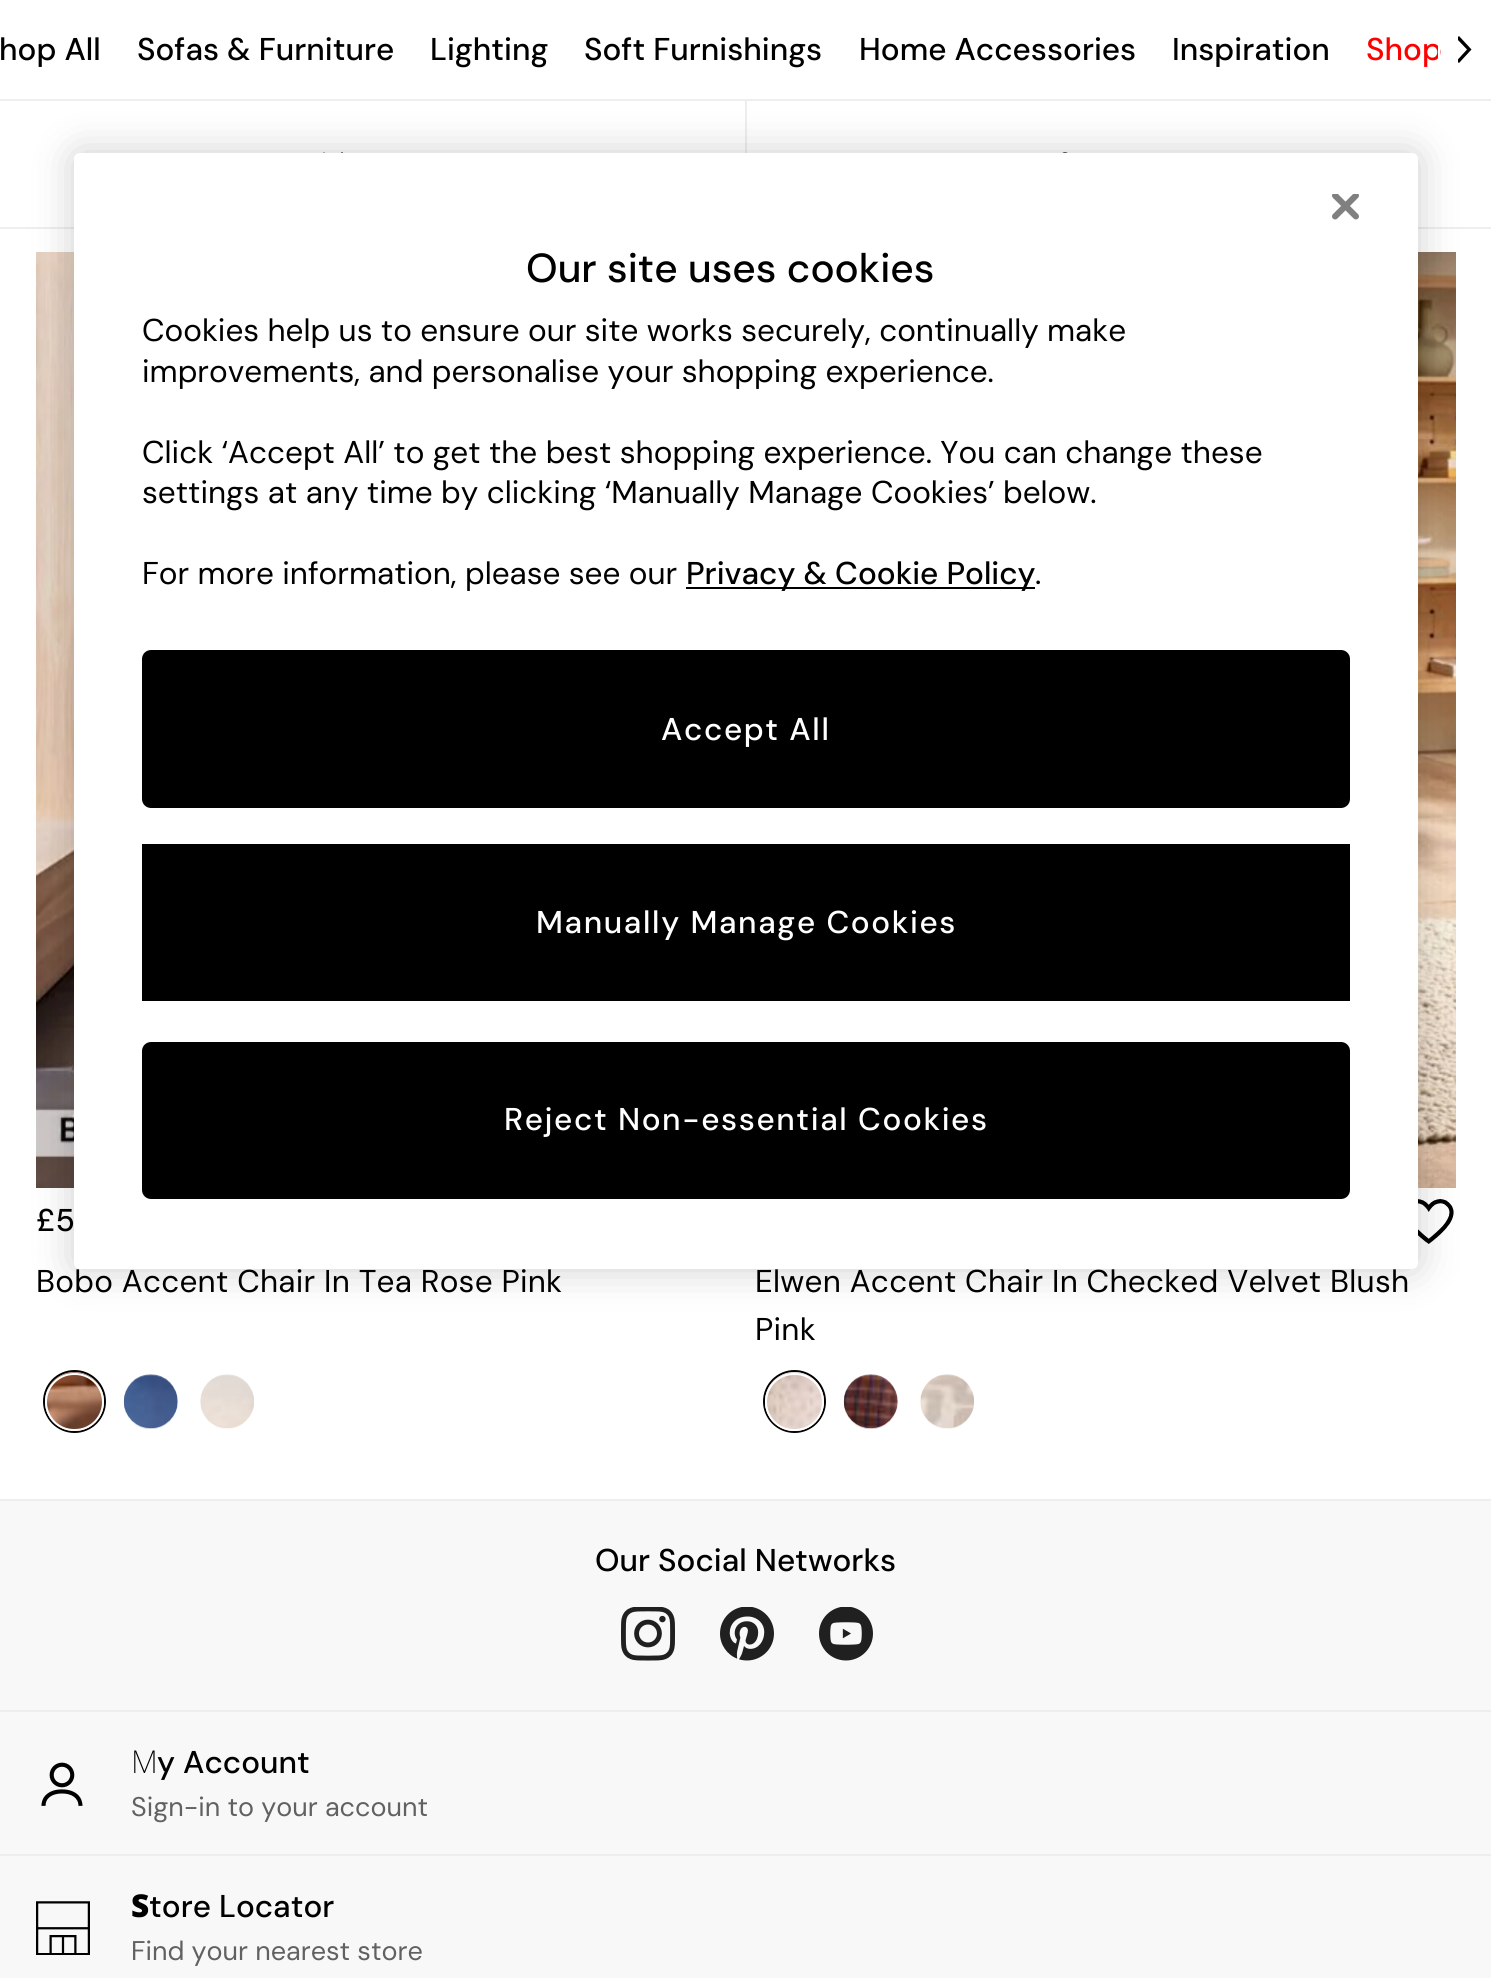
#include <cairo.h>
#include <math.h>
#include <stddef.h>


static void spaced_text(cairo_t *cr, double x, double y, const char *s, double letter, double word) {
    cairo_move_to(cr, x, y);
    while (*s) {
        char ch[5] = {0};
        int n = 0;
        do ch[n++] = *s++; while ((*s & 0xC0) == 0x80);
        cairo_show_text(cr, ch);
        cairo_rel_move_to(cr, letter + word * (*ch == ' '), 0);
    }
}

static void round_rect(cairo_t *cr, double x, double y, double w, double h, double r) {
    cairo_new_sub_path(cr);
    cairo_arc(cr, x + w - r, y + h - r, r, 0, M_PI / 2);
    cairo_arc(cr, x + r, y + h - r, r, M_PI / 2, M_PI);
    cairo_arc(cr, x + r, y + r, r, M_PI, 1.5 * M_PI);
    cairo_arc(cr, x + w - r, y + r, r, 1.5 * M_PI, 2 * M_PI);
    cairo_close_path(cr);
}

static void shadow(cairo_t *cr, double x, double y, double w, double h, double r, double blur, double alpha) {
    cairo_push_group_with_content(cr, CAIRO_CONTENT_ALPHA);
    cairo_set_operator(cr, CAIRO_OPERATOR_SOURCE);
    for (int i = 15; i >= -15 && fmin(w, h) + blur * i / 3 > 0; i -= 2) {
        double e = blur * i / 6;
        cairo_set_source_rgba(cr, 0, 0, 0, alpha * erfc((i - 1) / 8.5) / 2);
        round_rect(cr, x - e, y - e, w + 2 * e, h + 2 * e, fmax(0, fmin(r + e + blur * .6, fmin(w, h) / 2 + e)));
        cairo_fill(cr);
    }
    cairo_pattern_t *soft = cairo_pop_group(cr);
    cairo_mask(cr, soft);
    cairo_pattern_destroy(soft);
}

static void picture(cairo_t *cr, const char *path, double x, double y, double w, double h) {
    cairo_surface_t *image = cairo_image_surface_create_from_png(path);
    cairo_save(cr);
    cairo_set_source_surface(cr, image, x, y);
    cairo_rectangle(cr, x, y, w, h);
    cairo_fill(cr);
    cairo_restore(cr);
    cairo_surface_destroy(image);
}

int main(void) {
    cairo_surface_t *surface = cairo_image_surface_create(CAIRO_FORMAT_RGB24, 1491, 1978);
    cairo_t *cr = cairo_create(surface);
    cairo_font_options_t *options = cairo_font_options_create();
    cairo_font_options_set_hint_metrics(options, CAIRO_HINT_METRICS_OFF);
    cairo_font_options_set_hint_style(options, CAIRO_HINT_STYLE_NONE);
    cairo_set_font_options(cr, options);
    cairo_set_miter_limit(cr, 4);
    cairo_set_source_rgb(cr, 1, 1, 1);
    cairo_paint(cr);
    cairo_select_font_face(cr, "DM Sans Medium", CAIRO_FONT_SLANT_NORMAL, CAIRO_FONT_WEIGHT_NORMAL);
    cairo_set_font_size(cr, 31.5);
    cairo_set_source_rgb(cr, 0, 0, 0);
    cairo_move_to(cr, -1, 60);
    cairo_show_text(cr, "hop All");
    cairo_move_to(cr, 137, 60);
    cairo_show_text(cr, "Sofas & Furniture");
    cairo_move_to(cr, 430, 60);
    cairo_show_text(cr, "Lighting");
    cairo_move_to(cr, 584, 60);
    cairo_show_text(cr, "Soft Furnishings");
    cairo_move_to(cr, 859, 60);
    cairo_show_text(cr, "Home Accessories");
    cairo_move_to(cr, 1172, 60);
    cairo_show_text(cr, "Inspiration");
    cairo_set_source_rgb(cr, 1, 0, 0);
    cairo_move_to(cr, 1366, 60);
    cairo_show_text(cr, "Shop");
    cairo_set_source_rgb(cr, 1, 1, 1);
    cairo_rectangle(cr, 1438, 46, 2, 12);
    cairo_fill(cr);
    cairo_save(cr);
    cairo_rectangle(cr, 1458, 36, 16, 27);
    cairo_clip(cr);
    cairo_set_source_rgb(cr, 0, 0, 0);
    cairo_set_fill_rule(cr, CAIRO_FILL_RULE_EVEN_ODD);
    cairo_new_path(cr);
    cairo_move_to(cr, 1456.5, 38.5);
    cairo_line_to(cr, 1459, 36);
    cairo_line_to(cr, 1471.5, 49.5);
    cairo_line_to(cr, 1459, 63);
    cairo_line_to(cr, 1456.5, 61);
    cairo_line_to(cr, 1467, 49.5);
    cairo_close_path(cr);
    cairo_fill(cr);
    cairo_restore(cr);
    cairo_set_source_rgb(cr, 0.933, 0.933, 0.933);
    cairo_rectangle(cr, 0, 99, 1491, 2);
    cairo_fill(cr);
    cairo_rectangle(cr, 0, 227, 1491, 2);
    cairo_fill(cr);
    picture(cr, "img2.png", 323, 152, 20, 1);
    cairo_rectangle(cr, 745, 101, 2, 52);
    cairo_fill(cr);
    picture(cr, "img3.png", 1062, 152, 6, 1);
    picture(cr, "img4.png", 36, 252, 38, 936);
    picture(cr, "img8.png", 1418, 252, 38, 936);
    picture(cr, "img9.png", 1418, 1199, 36, 45);
    cairo_set_source_rgb(cr, 0, 0, 0);
    shadow(cr, 74, 153, 1344, 1116, 6, 20, 0.2);
    cairo_set_source_rgb(cr, 1, 1, 1);
    round_rect(cr, 74, 153, 1344, 1116, 6);
    cairo_fill(cr);
    picture(cr, "img1.png", 1332, 194, 27, 26);
    cairo_select_font_face(cr, "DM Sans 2 Medium", CAIRO_FONT_SLANT_NORMAL, CAIRO_FONT_WEIGHT_NORMAL);
    cairo_set_font_size(cr, 40.5);
    cairo_set_source_rgb(cr, 0, 0, 0);
    cairo_move_to(cr, 526, 282);
    cairo_show_text(cr, "Our site uses cookies");
    cairo_select_font_face(cr, "DM Sans 2", CAIRO_FONT_SLANT_NORMAL, CAIRO_FONT_WEIGHT_NORMAL);
    cairo_set_font_size(cr, 31.5);
    cairo_move_to(cr, 142, 341);
    cairo_show_text(cr, "Cookies help us to ensure our site works securely, continually make");
    cairo_move_to(cr, 142, 382);
    cairo_show_text(cr, "improvements, and personalise your shopping experience.");
    cairo_move_to(cr, 142, 463);
    cairo_show_text(cr, "Click ‘Accept All’ to get the best shopping experience. You can change these");
    cairo_move_to(cr, 142, 503);
    cairo_show_text(cr, "settings at any time by clicking ‘Manually Manage Cookies’ below.");
    cairo_move_to(cr, 142, 584);
    cairo_show_text(cr, "For more information, please see our");
    cairo_rectangle(cr, 686, 587, 349, 2);
    cairo_fill(cr);
    cairo_select_font_face(cr, "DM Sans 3 Medium", CAIRO_FONT_SLANT_NORMAL, CAIRO_FONT_WEIGHT_NORMAL);
    cairo_move_to(cr, 686, 584);
    cairo_show_text(cr, "Privacy & Cookie Policy");
    cairo_select_font_face(cr, "DM Sans 2", CAIRO_FONT_SLANT_NORMAL, CAIRO_FONT_WEIGHT_NORMAL);
    cairo_move_to(cr, 1035, 584);
    cairo_show_text(cr, ".");
    round_rect(cr, 143, 651, 1206, 156, 8);
    cairo_fill_preserve(cr);
    cairo_stroke(cr);
    cairo_select_font_face(cr, "DM Sans 3 Medium", CAIRO_FONT_SLANT_NORMAL, CAIRO_FONT_WEIGHT_NORMAL);
    cairo_set_source_rgb(cr, 1, 1, 1);
    spaced_text(cr, 661, 740, "Accept All", 1.6, 0);
    cairo_set_source_rgb(cr, 0, 0, 0);
    cairo_rectangle(cr, 142, 844, 1208, 157);
    cairo_fill(cr);
    cairo_set_source_rgb(cr, 1, 1, 1);
    spaced_text(cr, 536, 933, "Manually Manage Cookies", 1.6, 0);
    cairo_set_source_rgb(cr, 0, 0, 0);
    round_rect(cr, 143, 1043, 1206, 155, 8);
    cairo_fill_preserve(cr);
    cairo_stroke(cr);
    cairo_set_source_rgb(cr, 1, 1, 1);
    spaced_text(cr, 504, 1130, "Reject Non-essential Cookies", 1.6, 0);
    cairo_select_font_face(cr, "DM Sans Medium", CAIRO_FONT_SLANT_NORMAL, CAIRO_FONT_WEIGHT_NORMAL);
    cairo_set_source_rgb(cr, 0, 0, 0);
    spaced_text(cr, 36, 1231, "£5", 0.25, 0);
    cairo_select_font_face(cr, "DM Sans", CAIRO_FONT_SLANT_NORMAL, CAIRO_FONT_WEIGHT_NORMAL);
    spaced_text(cr, 36, 1292, "Bobo Accent Chair In Tea Rose Pink", 0.25, 0);
    cairo_new_path(cr);
    cairo_arc(cr, 74.5, 1401.5, 30.5, 0, 2 * M_PI);
    cairo_stroke(cr);
    picture(cr, "img5.png", 45, 1372, 59, 60);
    round_rect(cr, 46, 1374, 57, 56, 28);
    cairo_set_source_rgb(cr, 1, 1, 1);
    cairo_stroke(cr);
    picture(cr, "img6.png", 123, 1374, 55, 55);
    picture(cr, "img7.png", 200, 1374, 54, 55);
    cairo_set_source_rgb(cr, 0, 0, 0);
    spaced_text(cr, 755, 1292, "Elwen Accent Chair In Checked Velvet Blush", 0.25, 0);
    spaced_text(cr, 755, 1340, "Pink", 0.25, 0);
    cairo_new_path(cr);
    cairo_arc(cr, 794.5, 1401.5, 30.5, 0, 2 * M_PI);
    cairo_stroke(cr);
    picture(cr, "img10.png", 765, 1372, 59, 60);
    round_rect(cr, 766, 1374, 57, 56, 28);
    cairo_set_source_rgb(cr, 1, 1, 1);
    cairo_stroke(cr);
    picture(cr, "img11.png", 843, 1374, 55, 55);
    picture(cr, "img12.png", 920, 1374, 55, 55);
    cairo_set_source_rgb(cr, 0.969, 0.969, 0.969);
    cairo_rectangle(cr, 0, 1501, 1491, 209);
    cairo_fill(cr);
    cairo_set_source_rgb(cr, 0.933, 0.933, 0.933);
    cairo_rectangle(cr, 0, 1499, 1491, 2);
    cairo_fill(cr);
    cairo_select_font_face(cr, "DM Sans Medium", CAIRO_FONT_SLANT_NORMAL, CAIRO_FONT_WEIGHT_NORMAL);
    cairo_set_source_rgb(cr, 0, 0, 0);
    cairo_move_to(cr, 595, 1571);
    cairo_show_text(cr, "Our Social Networks");
    picture(cr, "img13.png", 621, 1607, 54, 54);
    picture(cr, "img14.png", 720, 1607, 54, 54);
    picture(cr, "img15.png", 819, 1607, 54, 54);
    cairo_set_source_rgb(cr, 0.969, 0.969, 0.969);
    cairo_rectangle(cr, 0, 1712, 1491, 266);
    cairo_fill(cr);
    cairo_set_source_rgb(cr, 0.933, 0.933, 0.933);
    cairo_rectangle(cr, 0, 1710, 1491, 2);
    cairo_fill(cr);
    cairo_rectangle(cr, 0, 1854, 1491, 2);
    cairo_fill(cr);
    picture(cr, "img16.png", 41, 1762, 42, 44);
    cairo_select_font_face(cr, "Noto Sans ExtraLight", CAIRO_FONT_SLANT_NORMAL, CAIRO_FONT_WEIGHT_NORMAL);
    cairo_set_source_rgb(cr, 0, 0, 0);
    cairo_move_to(cr, 131, 1773);
    cairo_show_text(cr, "M");
    cairo_select_font_face(cr, "DM Sans Medium", CAIRO_FONT_SLANT_NORMAL, CAIRO_FONT_WEIGHT_NORMAL);
    cairo_move_to(cr, 157, 1773);
    cairo_show_text(cr, "y Account");
    cairo_select_font_face(cr, "DM Sans", CAIRO_FONT_SLANT_NORMAL, CAIRO_FONT_WEIGHT_NORMAL);
    cairo_set_font_size(cr, 27);
    cairo_set_source_rgb(cr, 0.38, 0.38, 0.38);
    cairo_move_to(cr, 131, 1816);
    cairo_show_text(cr, "Sign-in to your account");
    picture(cr, "img17.png", 36, 1901, 54, 54);
    cairo_select_font_face(cr, "Noto Sans Black", CAIRO_FONT_SLANT_NORMAL, CAIRO_FONT_WEIGHT_NORMAL);
    cairo_set_font_size(cr, 31.5);
    cairo_set_source_rgb(cr, 0, 0, 0);
    cairo_move_to(cr, 131, 1917);
    cairo_show_text(cr, "S");
    cairo_select_font_face(cr, "DM Sans Medium", CAIRO_FONT_SLANT_NORMAL, CAIRO_FONT_WEIGHT_NORMAL);
    cairo_move_to(cr, 149, 1917);
    cairo_show_text(cr, "tore Locator");
    cairo_select_font_face(cr, "DM Sans", CAIRO_FONT_SLANT_NORMAL, CAIRO_FONT_WEIGHT_NORMAL);
    cairo_set_font_size(cr, 27);
    cairo_set_source_rgb(cr, 0.38, 0.38, 0.38);
    cairo_move_to(cr, 131, 1960);
    cairo_show_text(cr, "Find your nearest store");
    cairo_surface_write_to_png(surface, "page.png");
    cairo_font_options_destroy(options);
    cairo_destroy(cr);
    cairo_surface_destroy(surface);
    return 0;
}
